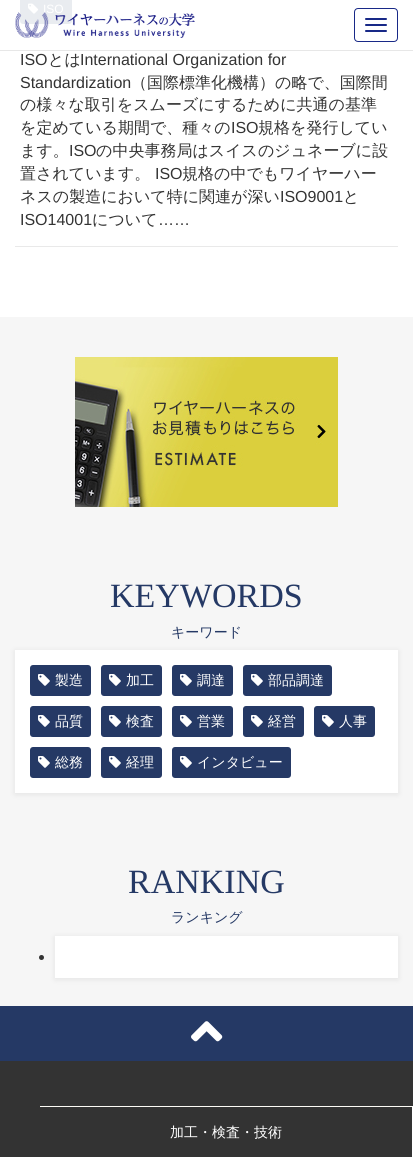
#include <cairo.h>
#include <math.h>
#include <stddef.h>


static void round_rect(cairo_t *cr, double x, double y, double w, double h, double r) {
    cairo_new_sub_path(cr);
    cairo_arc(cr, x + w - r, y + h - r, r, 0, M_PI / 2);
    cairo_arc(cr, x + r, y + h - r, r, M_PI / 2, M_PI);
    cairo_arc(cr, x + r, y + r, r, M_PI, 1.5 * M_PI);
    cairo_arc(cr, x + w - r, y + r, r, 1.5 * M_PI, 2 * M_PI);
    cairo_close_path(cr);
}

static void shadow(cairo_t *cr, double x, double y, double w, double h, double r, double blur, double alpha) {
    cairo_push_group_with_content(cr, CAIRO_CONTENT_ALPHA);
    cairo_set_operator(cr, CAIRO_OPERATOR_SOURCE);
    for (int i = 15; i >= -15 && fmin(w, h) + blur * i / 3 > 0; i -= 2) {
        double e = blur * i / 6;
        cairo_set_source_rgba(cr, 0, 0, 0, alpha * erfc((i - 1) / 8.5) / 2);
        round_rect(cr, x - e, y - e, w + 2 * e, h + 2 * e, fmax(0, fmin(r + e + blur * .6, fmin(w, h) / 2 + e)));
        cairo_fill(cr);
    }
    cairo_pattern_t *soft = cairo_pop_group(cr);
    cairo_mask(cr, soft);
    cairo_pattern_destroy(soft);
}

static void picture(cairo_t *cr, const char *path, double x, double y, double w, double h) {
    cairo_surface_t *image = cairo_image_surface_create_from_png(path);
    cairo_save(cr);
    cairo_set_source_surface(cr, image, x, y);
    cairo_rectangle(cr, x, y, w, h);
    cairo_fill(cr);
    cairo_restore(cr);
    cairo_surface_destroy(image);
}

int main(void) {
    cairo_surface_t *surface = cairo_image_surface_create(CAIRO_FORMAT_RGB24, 413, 1157);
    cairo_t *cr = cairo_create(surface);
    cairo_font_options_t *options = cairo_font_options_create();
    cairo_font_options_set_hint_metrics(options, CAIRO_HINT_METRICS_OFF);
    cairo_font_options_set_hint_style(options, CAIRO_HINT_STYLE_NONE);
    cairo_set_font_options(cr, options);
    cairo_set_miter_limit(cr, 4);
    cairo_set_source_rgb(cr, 0.961, 0.961, 0.961);
    cairo_paint(cr);
    cairo_set_source_rgb(cr, 1, 1, 1);
    cairo_rectangle(cr, 0, 51, 413, 266);
    cairo_fill(cr);
    cairo_rectangle(cr, 0, 0, 413, 50);
    cairo_fill(cr);
    cairo_set_source_rgb(cr, 0.914, 0.922, 0.941);
    round_rect(cr, 20, -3, 52, 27, 3);
    cairo_fill(cr);
    picture(cr, "img1.png", 28, 3, 11, 11);
    cairo_select_font_face(cr, "Liberation Sans", CAIRO_FONT_SLANT_NORMAL, CAIRO_FONT_WEIGHT_NORMAL);
    cairo_set_font_size(cr, 12);
    cairo_set_source_rgb(cr, 1, 1, 1);
    cairo_move_to(cr, 43, 13);
    cairo_show_text(cr, "ISO");
    cairo_set_font_size(cr, 16);
    cairo_set_source_rgb(cr, 0.2, 0.2, 0.2);
    cairo_move_to(cr, 20, 65);
    cairo_show_text(cr, "ISO");
    cairo_select_font_face(cr, "WenQuanYi Zen Hei Medium", CAIRO_FONT_SLANT_NORMAL, CAIRO_FONT_WEIGHT_NORMAL);
    cairo_move_to(cr, 48, 65);
    cairo_show_text(cr, "とは");
    cairo_select_font_face(cr, "Liberation Sans", CAIRO_FONT_SLANT_NORMAL, CAIRO_FONT_WEIGHT_NORMAL);
    cairo_move_to(cr, 80, 65);
    cairo_show_text(cr, "International Organization for");
    cairo_move_to(cr, 20, 88);
    cairo_show_text(cr, "Standardization");
    cairo_select_font_face(cr, "WenQuanYi Zen Hei Medium", CAIRO_FONT_SLANT_NORMAL, CAIRO_FONT_WEIGHT_NORMAL);
    cairo_move_to(cr, 131, 88);
    cairo_show_text(cr, "（国際標準化機構）の略で、国際間");
    cairo_move_to(cr, 20, 110);
    cairo_show_text(cr, "の様々な取引をスムーズにするために共通の基準");
    cairo_move_to(cr, 20, 133);
    cairo_show_text(cr, "を定めている期間で、種々の");
    cairo_select_font_face(cr, "Liberation Sans", CAIRO_FONT_SLANT_NORMAL, CAIRO_FONT_WEIGHT_NORMAL);
    cairo_move_to(cr, 231, 133);
    cairo_show_text(cr, "ISO");
    cairo_select_font_face(cr, "WenQuanYi Zen Hei Medium", CAIRO_FONT_SLANT_NORMAL, CAIRO_FONT_WEIGHT_NORMAL);
    cairo_move_to(cr, 258, 133);
    cairo_show_text(cr, "規格を発行してい");
    cairo_move_to(cr, 20, 156);
    cairo_show_text(cr, "ます。");
    cairo_select_font_face(cr, "Liberation Sans", CAIRO_FONT_SLANT_NORMAL, CAIRO_FONT_WEIGHT_NORMAL);
    cairo_move_to(cr, 69, 156);
    cairo_show_text(cr, "ISO");
    cairo_select_font_face(cr, "WenQuanYi Zen Hei Medium", CAIRO_FONT_SLANT_NORMAL, CAIRO_FONT_WEIGHT_NORMAL);
    cairo_move_to(cr, 96, 156);
    cairo_show_text(cr, "の中央事務局はスイスのジュネーブに設");
    cairo_move_to(cr, 20, 179);
    cairo_show_text(cr, "置されています。");
    cairo_select_font_face(cr, "Liberation Sans", CAIRO_FONT_SLANT_NORMAL, CAIRO_FONT_WEIGHT_NORMAL);
    cairo_move_to(cr, 155, 179);
    cairo_show_text(cr, "ISO");
    cairo_select_font_face(cr, "WenQuanYi Zen Hei Medium", CAIRO_FONT_SLANT_NORMAL, CAIRO_FONT_WEIGHT_NORMAL);
    cairo_move_to(cr, 182, 179);
    cairo_show_text(cr, "規格の中でもワイヤーハー");
    cairo_move_to(cr, 20, 202);
    cairo_show_text(cr, "ネスの製造において特に関連が深い");
    cairo_select_font_face(cr, "Liberation Sans", CAIRO_FONT_SLANT_NORMAL, CAIRO_FONT_WEIGHT_NORMAL);
    cairo_move_to(cr, 280, 202);
    cairo_show_text(cr, "ISO9001");
    cairo_select_font_face(cr, "WenQuanYi Zen Hei Medium", CAIRO_FONT_SLANT_NORMAL, CAIRO_FONT_WEIGHT_NORMAL);
    cairo_move_to(cr, 343, 202);
    cairo_show_text(cr, "と");
    cairo_select_font_face(cr, "Liberation Sans", CAIRO_FONT_SLANT_NORMAL, CAIRO_FONT_WEIGHT_NORMAL);
    cairo_move_to(cr, 20, 225);
    cairo_show_text(cr, "ISO14001");
    cairo_select_font_face(cr, "WenQuanYi Zen Hei Medium", CAIRO_FONT_SLANT_NORMAL, CAIRO_FONT_WEIGHT_NORMAL);
    cairo_move_to(cr, 92, 225);
    cairo_show_text(cr, "について");
    cairo_select_font_face(cr, "Liberation Sans", CAIRO_FONT_SLANT_NORMAL, CAIRO_FONT_WEIGHT_NORMAL);
    cairo_move_to(cr, 158, 225);
    cairo_show_text(cr, "……");
    cairo_set_source_rgb(cr, 0.914, 0.914, 0.914);
    cairo_rectangle(cr, 15, 246, 383, 1);
    cairo_fill(cr);
    picture(cr, "img2.png", 75, 357, 263, 150);
    cairo_select_font_face(cr, "Liberation Serif", CAIRO_FONT_SLANT_NORMAL, CAIRO_FONT_WEIGHT_NORMAL);
    cairo_set_font_size(cr, 34);
    cairo_set_source_rgb(cr, 0.145, 0.224, 0.396);
    cairo_move_to(cr, 110, 607);
    cairo_show_text(cr, "KEYWORDS");
    cairo_select_font_face(cr, "WenQuanYi Zen Hei Medium", CAIRO_FONT_SLANT_NORMAL, CAIRO_FONT_WEIGHT_NORMAL);
    cairo_set_font_size(cr, 14);
    cairo_move_to(cr, 171, 637);
    cairo_show_text(cr, "キーワード");
    cairo_set_source_rgb(cr, 0.467, 0.467, 0.467);
    shadow(cr, 15, 651, 383, 143, 0, 3, 0.16);
    cairo_set_source_rgb(cr, 1, 1, 1);
    cairo_rectangle(cr, 15, 650, 383, 143);
    cairo_fill(cr);
    cairo_set_source_rgb(cr, 0.145, 0.224, 0.396);
    round_rect(cr, 30, 665, 61, 31, 3);
    cairo_fill(cr);
    picture(cr, "img3.png", 38, 674, 12, 12);
    cairo_set_source_rgb(cr, 1, 1, 1);
    cairo_move_to(cr, 55, 685);
    cairo_show_text(cr, "製造");
    cairo_set_source_rgb(cr, 0.145, 0.224, 0.396);
    round_rect(cr, 101, 665, 61, 31, 3);
    cairo_fill(cr);
    picture(cr, "img3.png", 109, 674, 12, 12);
    cairo_set_source_rgb(cr, 1, 1, 1);
    cairo_move_to(cr, 126, 685);
    cairo_show_text(cr, "加工");
    cairo_set_source_rgb(cr, 0.145, 0.224, 0.396);
    round_rect(cr, 172, 665, 61, 31, 3);
    cairo_fill(cr);
    picture(cr, "img3.png", 180, 674, 12, 12);
    cairo_set_source_rgb(cr, 1, 1, 1);
    cairo_move_to(cr, 197, 685);
    cairo_show_text(cr, "調達");
    cairo_set_source_rgb(cr, 0.145, 0.224, 0.396);
    round_rect(cr, 243, 665, 89, 31, 3);
    cairo_fill(cr);
    picture(cr, "img3.png", 251, 674, 12, 12);
    cairo_set_source_rgb(cr, 1, 1, 1);
    cairo_move_to(cr, 268, 685);
    cairo_show_text(cr, "部品調達");
    cairo_set_source_rgb(cr, 0.145, 0.224, 0.396);
    round_rect(cr, 30, 706, 61, 31, 3);
    cairo_fill(cr);
    picture(cr, "img3.png", 38, 715, 12, 12);
    cairo_set_source_rgb(cr, 1, 1, 1);
    cairo_move_to(cr, 55, 726);
    cairo_show_text(cr, "品質");
    cairo_set_source_rgb(cr, 0.145, 0.224, 0.396);
    round_rect(cr, 101, 706, 61, 31, 3);
    cairo_fill(cr);
    picture(cr, "img3.png", 109, 715, 12, 12);
    cairo_set_source_rgb(cr, 1, 1, 1);
    cairo_move_to(cr, 126, 726);
    cairo_show_text(cr, "検査");
    cairo_set_source_rgb(cr, 0.145, 0.224, 0.396);
    round_rect(cr, 172, 706, 61, 31, 3);
    cairo_fill(cr);
    picture(cr, "img3.png", 180, 715, 12, 12);
    cairo_set_source_rgb(cr, 1, 1, 1);
    cairo_move_to(cr, 197, 726);
    cairo_show_text(cr, "営業");
    cairo_set_source_rgb(cr, 0.145, 0.224, 0.396);
    round_rect(cr, 243, 706, 61, 31, 3);
    cairo_fill(cr);
    picture(cr, "img3.png", 251, 715, 12, 12);
    cairo_set_source_rgb(cr, 1, 1, 1);
    cairo_move_to(cr, 268, 726);
    cairo_show_text(cr, "経営");
    cairo_set_source_rgb(cr, 0.145, 0.224, 0.396);
    round_rect(cr, 314, 706, 61, 31, 3);
    cairo_fill(cr);
    picture(cr, "img3.png", 322, 715, 12, 12);
    cairo_set_source_rgb(cr, 1, 1, 1);
    cairo_move_to(cr, 339, 726);
    cairo_show_text(cr, "人事");
    cairo_set_source_rgb(cr, 0.145, 0.224, 0.396);
    round_rect(cr, 30, 747, 61, 31, 3);
    cairo_fill(cr);
    picture(cr, "img3.png", 38, 756, 12, 12);
    cairo_set_source_rgb(cr, 1, 1, 1);
    cairo_move_to(cr, 55, 767);
    cairo_show_text(cr, "総務");
    cairo_set_source_rgb(cr, 0.145, 0.224, 0.396);
    round_rect(cr, 101, 747, 61, 31, 3);
    cairo_fill(cr);
    picture(cr, "img3.png", 109, 756, 12, 12);
    cairo_set_source_rgb(cr, 1, 1, 1);
    cairo_move_to(cr, 126, 767);
    cairo_show_text(cr, "経理");
    cairo_set_source_rgb(cr, 0.145, 0.224, 0.396);
    round_rect(cr, 172, 747, 119, 31, 3);
    cairo_fill(cr);
    picture(cr, "img3.png", 180, 756, 12, 12);
    cairo_set_source_rgb(cr, 1, 1, 1);
    cairo_move_to(cr, 197, 767);
    cairo_show_text(cr, "インタビュー");
    cairo_select_font_face(cr, "Liberation Serif", CAIRO_FONT_SLANT_NORMAL, CAIRO_FONT_WEIGHT_NORMAL);
    cairo_set_font_size(cr, 34);
    cairo_set_source_rgb(cr, 0.145, 0.224, 0.396);
    cairo_move_to(cr, 128, 893);
    cairo_show_text(cr, "RANKING");
    cairo_select_font_face(cr, "WenQuanYi Zen Hei Medium", CAIRO_FONT_SLANT_NORMAL, CAIRO_FONT_WEIGHT_NORMAL);
    cairo_set_font_size(cr, 14);
    cairo_move_to(cr, 171, 922);
    cairo_show_text(cr, "ランキング");
    cairo_set_source_rgb(cr, 0.467, 0.467, 0.467);
    shadow(cr, 55, 937, 343, 42, 0, 3, 0.16);
    cairo_set_source_rgb(cr, 1, 1, 1);
    cairo_rectangle(cr, 55, 936, 343, 42);
    cairo_fill(cr);
    cairo_set_source_rgb(cr, 0.2, 0.2, 0.2);
    cairo_arc(cr, 41.5, 957.5, 2.5, 0, 2 * M_PI);
    cairo_fill(cr);
    cairo_set_source_rgb(cr, 0.906, 0.906, 0.906);
    cairo_rectangle(cr, 0, 50, 413, 1);
    cairo_fill(cr);
    picture(cr, "img4.png", 15, 12, 180, 26);
    round_rect(cr, 354.5, 8.5, 43, 33, 3.5);
    cairo_set_source_rgb(cr, 0.094, 0.161, 0.529);
    cairo_set_line_width(cr, 1);
    cairo_stroke(cr);
    round_rect(cr, 365, 18, 22, 2, 1);
    cairo_fill(cr);
    round_rect(cr, 365, 24, 22, 2, 1);
    cairo_fill(cr);
    round_rect(cr, 365, 30, 22, 2, 1);
    cairo_fill(cr);
    cairo_set_source_rgb(cr, 0.2, 0.2, 0.2);
    cairo_rectangle(cr, 0, 1061, 413, 96);
    cairo_fill(cr);
    cairo_set_source_rgb(cr, 0.145, 0.224, 0.396);
    cairo_rectangle(cr, 0, 1006, 413, 55);
    cairo_fill(cr);
    picture(cr, "img5.png", 191, 1021, 32, 21);
    cairo_set_source_rgb(cr, 0.988, 0.984, 0.961);
    cairo_rectangle(cr, 40, 1106, 373, 1);
    cairo_fill(cr);
    cairo_set_source_rgb(cr, 1, 1, 1);
    cairo_rectangle(cr, 412, 1106, 1, 51);
    cairo_fill(cr);
    cairo_move_to(cr, 170, 1137);
    cairo_show_text(cr, "加工・検査・技術");
    cairo_surface_write_to_png(surface, "page.png");
    cairo_font_options_destroy(options);
    cairo_destroy(cr);
    cairo_surface_destroy(surface);
    return 0;
}
